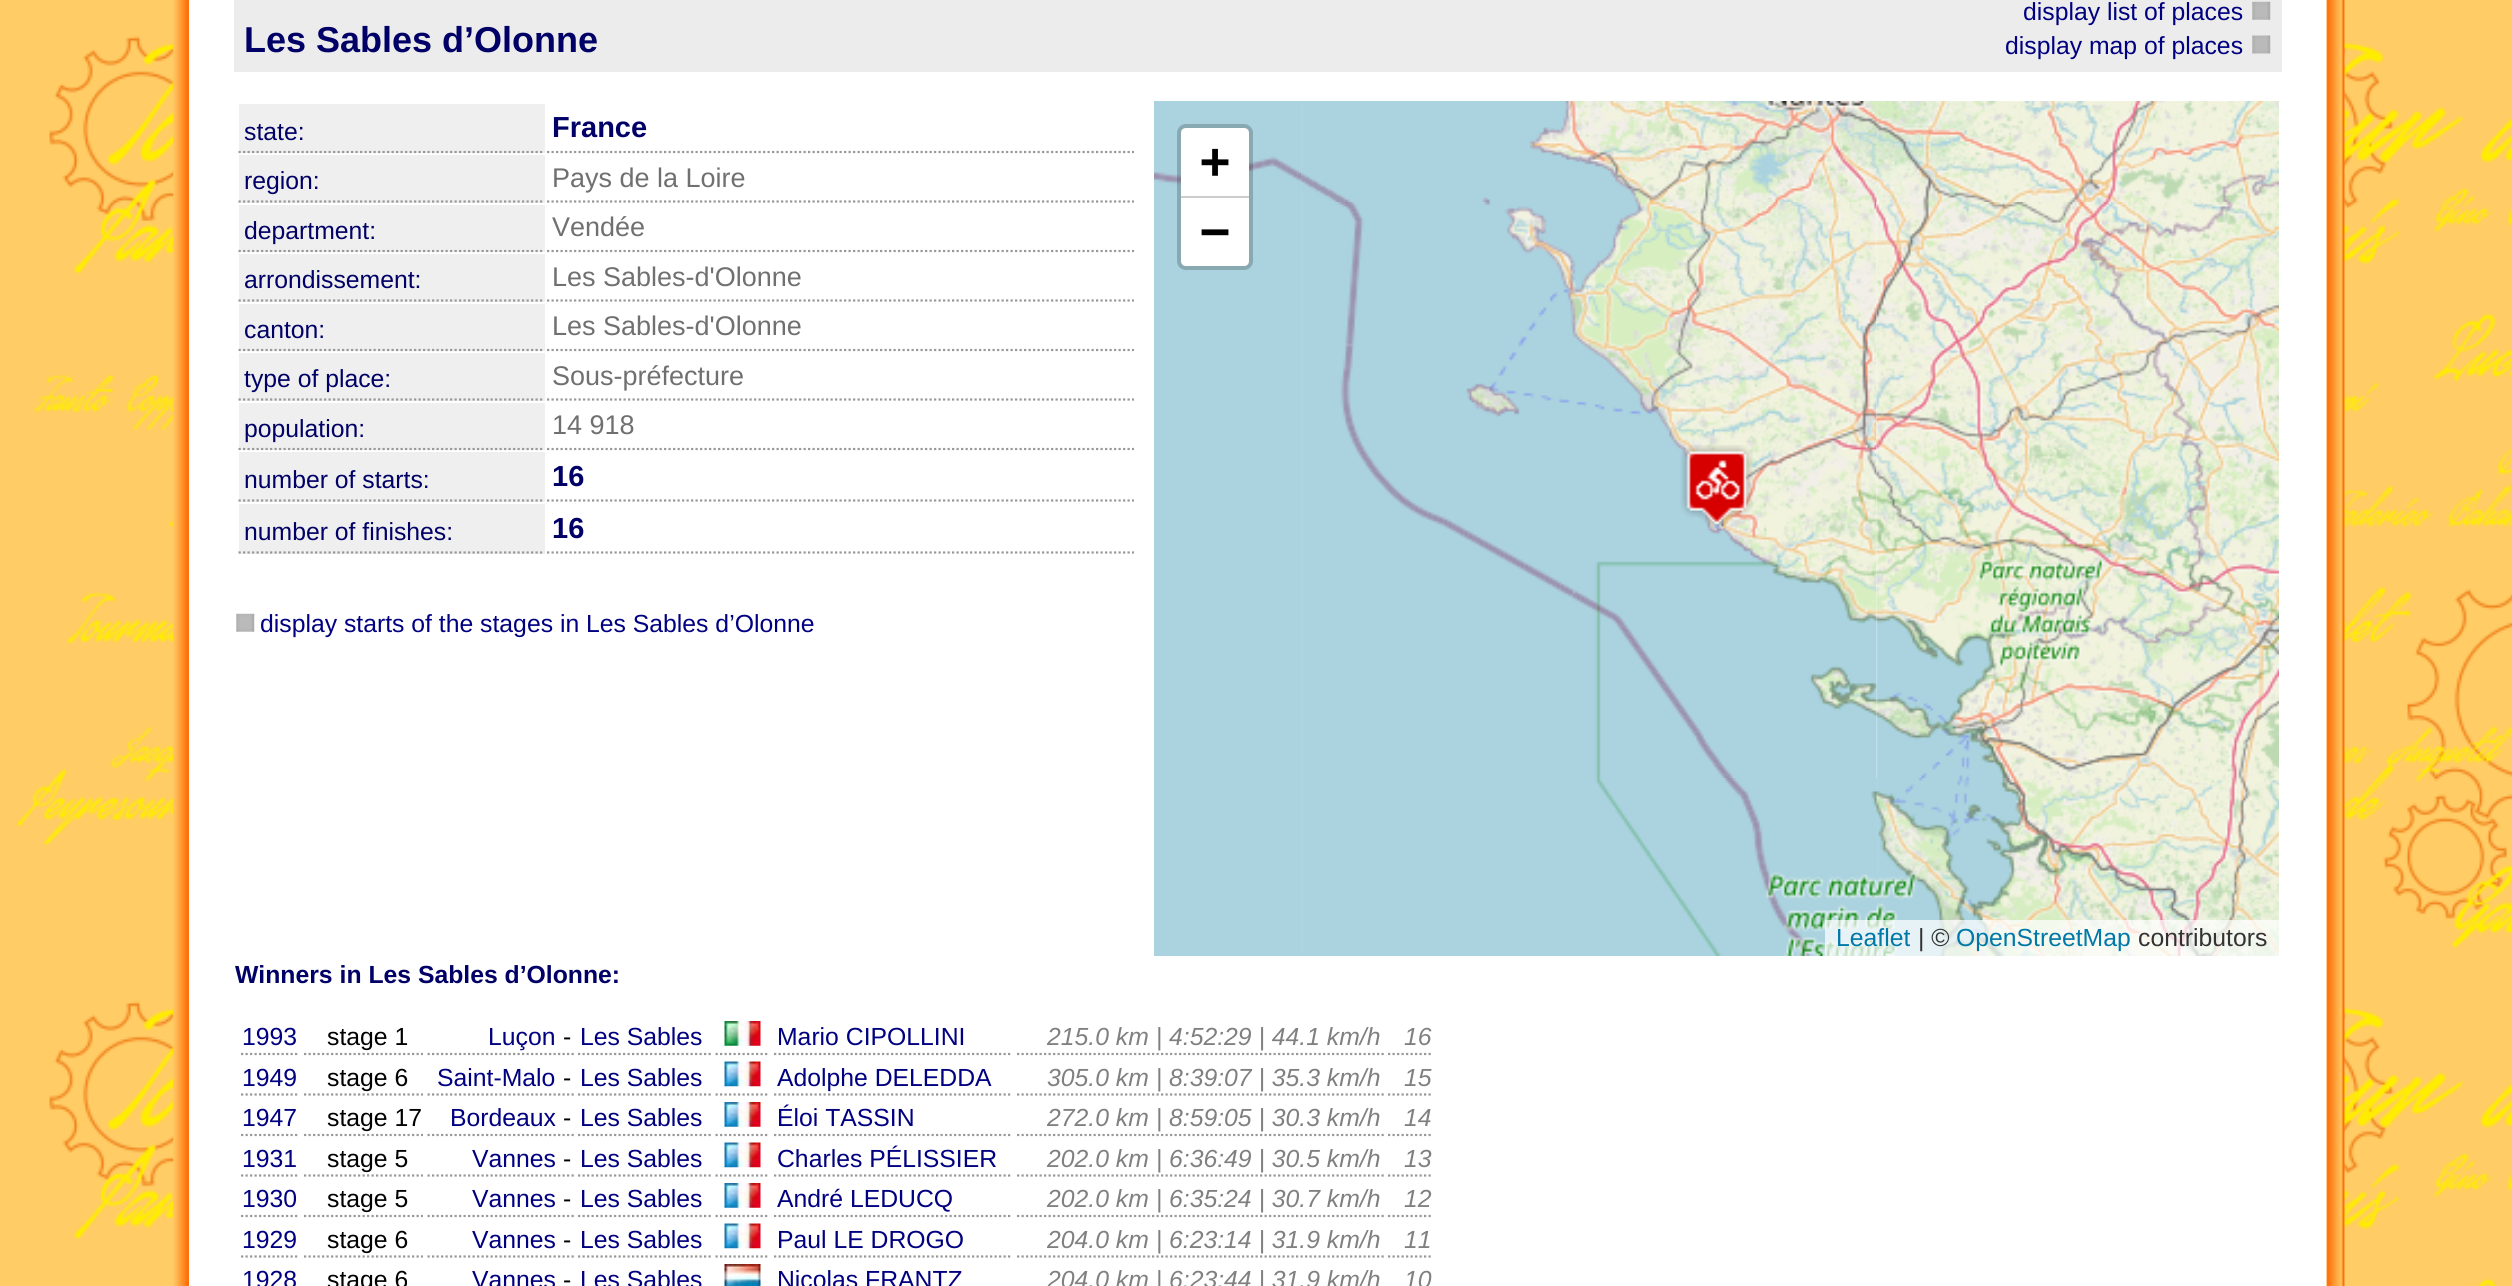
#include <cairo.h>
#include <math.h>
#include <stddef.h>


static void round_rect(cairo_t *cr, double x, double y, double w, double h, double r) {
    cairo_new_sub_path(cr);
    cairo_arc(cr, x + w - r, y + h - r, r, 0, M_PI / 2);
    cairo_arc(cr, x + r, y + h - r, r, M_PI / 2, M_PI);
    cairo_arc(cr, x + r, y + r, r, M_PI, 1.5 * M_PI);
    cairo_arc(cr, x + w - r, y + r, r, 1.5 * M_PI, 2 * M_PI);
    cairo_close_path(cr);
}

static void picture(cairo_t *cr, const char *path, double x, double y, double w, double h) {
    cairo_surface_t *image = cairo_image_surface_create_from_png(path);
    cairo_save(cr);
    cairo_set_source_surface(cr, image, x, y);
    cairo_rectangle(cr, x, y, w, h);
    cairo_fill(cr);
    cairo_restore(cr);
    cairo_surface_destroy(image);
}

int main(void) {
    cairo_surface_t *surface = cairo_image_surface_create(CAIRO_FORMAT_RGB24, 2512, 1286);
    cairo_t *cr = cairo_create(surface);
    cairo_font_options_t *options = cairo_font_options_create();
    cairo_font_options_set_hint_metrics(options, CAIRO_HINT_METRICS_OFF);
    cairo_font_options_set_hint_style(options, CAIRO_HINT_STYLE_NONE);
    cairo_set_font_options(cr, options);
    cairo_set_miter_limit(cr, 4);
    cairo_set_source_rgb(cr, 1, 0.8, 0.4);
    cairo_paint(cr);
    picture(cr, "img1.png", 15, 28, 2497, 1258);
    picture(cr, "img2.png", 173, 0, 16, 1286);
    cairo_set_source_rgb(cr, 1, 1, 1);
    cairo_rectangle(cr, 189, 0, 2138, 1286);
    cairo_fill(cr);
    cairo_set_source_rgb(cr, 0.925, 0.925, 0.925);
    cairo_rectangle(cr, 234, 0, 2048, 72);
    cairo_fill(cr);
    cairo_select_font_face(cr, "Liberation Sans", CAIRO_FONT_SLANT_NORMAL, CAIRO_FONT_WEIGHT_BOLD);
    cairo_set_font_size(cr, 36);
    cairo_set_source_rgb(cr, 0, 0, 0.4);
    cairo_move_to(cr, 244, 52);
    cairo_show_text(cr, "Les Sables d’Olonne");
    cairo_select_font_face(cr, "Liberation Sans", CAIRO_FONT_SLANT_NORMAL, CAIRO_FONT_WEIGHT_NORMAL);
    cairo_set_font_size(cr, 24.75);
    cairo_set_source_rgb(cr, 0, 0, 0.502);
    cairo_move_to(cr, 2023, 20);
    cairo_show_text(cr, "display list of places");
    picture(cr, "img3.png", 2252, 1, 19, 19);
    cairo_move_to(cr, 2005, 54);
    cairo_show_text(cr, "display map of places");
    picture(cr, "img4.png", 2252, 35, 19, 19);
    cairo_set_source_rgb(cr, 0.937, 0.937, 0.937);
    cairo_rectangle(cr, 239, 104, 306, 49);
    cairo_fill(cr);
    cairo_new_path(cr);
    cairo_move_to(cr, 238.5, 152);
    cairo_line_to(cr, 544.5, 152);
    cairo_set_source_rgb(cr, 0.6, 0.6, 0.6);
    cairo_set_line_width(cr, 2.2);
    cairo_set_dash(cr, (double[]){2.25, 2.25}, 2, 0);
    cairo_stroke(cr);
    cairo_set_source_rgb(cr, 0, 0, 0.4);
    cairo_move_to(cr, 244, 140);
    cairo_show_text(cr, "state:");
    cairo_new_path(cr);
    cairo_move_to(cr, 547, 152);
    cairo_line_to(cr, 1134, 152);
    cairo_set_source_rgb(cr, 0.6, 0.6, 0.6);
    cairo_stroke(cr);
    cairo_select_font_face(cr, "Liberation Sans", CAIRO_FONT_SLANT_NORMAL, CAIRO_FONT_WEIGHT_BOLD);
    cairo_set_font_size(cr, 29);
    cairo_set_source_rgb(cr, 0, 0, 0.4);
    cairo_move_to(cr, 552, 137);
    cairo_show_text(cr, "France");
    cairo_set_source_rgb(cr, 0.937, 0.937, 0.937);
    cairo_rectangle(cr, 239, 155, 306, 48);
    cairo_fill(cr);
    cairo_new_path(cr);
    cairo_move_to(cr, 238.5, 201.5);
    cairo_line_to(cr, 544.5, 201.5);
    cairo_set_source_rgb(cr, 0.6, 0.6, 0.6);
    cairo_stroke(cr);
    cairo_select_font_face(cr, "Liberation Sans", CAIRO_FONT_SLANT_NORMAL, CAIRO_FONT_WEIGHT_NORMAL);
    cairo_set_font_size(cr, 24.75);
    cairo_set_source_rgb(cr, 0, 0, 0.4);
    cairo_move_to(cr, 244, 189);
    cairo_show_text(cr, "region:");
    cairo_new_path(cr);
    cairo_move_to(cr, 547, 201.5);
    cairo_line_to(cr, 1134, 201.5);
    cairo_set_source_rgb(cr, 0.6, 0.6, 0.6);
    cairo_stroke(cr);
    cairo_set_font_size(cr, 27);
    cairo_set_source_rgb(cr, 0.439, 0.439, 0.439);
    cairo_move_to(cr, 552, 187);
    cairo_show_text(cr, "Pays de la Loire");
    cairo_set_source_rgb(cr, 0.937, 0.937, 0.937);
    cairo_rectangle(cr, 239, 205, 306, 47);
    cairo_fill(cr);
    cairo_new_path(cr);
    cairo_move_to(cr, 238.5, 251);
    cairo_line_to(cr, 544.5, 251);
    cairo_set_source_rgb(cr, 0.6, 0.6, 0.6);
    cairo_stroke(cr);
    cairo_set_font_size(cr, 24.75);
    cairo_set_source_rgb(cr, 0, 0, 0.4);
    cairo_move_to(cr, 244, 239);
    cairo_show_text(cr, "department:");
    cairo_new_path(cr);
    cairo_move_to(cr, 547, 251);
    cairo_line_to(cr, 1134, 251);
    cairo_set_source_rgb(cr, 0.6, 0.6, 0.6);
    cairo_stroke(cr);
    cairo_set_font_size(cr, 27);
    cairo_set_source_rgb(cr, 0.439, 0.439, 0.439);
    cairo_move_to(cr, 552, 236);
    cairo_show_text(cr, "Vendée");
    cairo_set_source_rgb(cr, 0.937, 0.937, 0.937);
    cairo_rectangle(cr, 239, 254, 306, 48);
    cairo_fill(cr);
    cairo_new_path(cr);
    cairo_move_to(cr, 238.5, 300.5);
    cairo_line_to(cr, 544.5, 300.5);
    cairo_set_source_rgb(cr, 0.6, 0.6, 0.6);
    cairo_stroke(cr);
    cairo_set_font_size(cr, 24.75);
    cairo_set_source_rgb(cr, 0, 0, 0.4);
    cairo_move_to(cr, 244, 288);
    cairo_show_text(cr, "arrondissement:");
    cairo_new_path(cr);
    cairo_move_to(cr, 547, 300.5);
    cairo_line_to(cr, 1134, 300.5);
    cairo_set_source_rgb(cr, 0.6, 0.6, 0.6);
    cairo_stroke(cr);
    cairo_set_font_size(cr, 27);
    cairo_set_source_rgb(cr, 0.439, 0.439, 0.439);
    cairo_move_to(cr, 552, 286);
    cairo_show_text(cr, "Les Sables-d'Olonne");
    cairo_set_source_rgb(cr, 0.937, 0.937, 0.937);
    cairo_rectangle(cr, 239, 304, 306, 47);
    cairo_fill(cr);
    cairo_new_path(cr);
    cairo_move_to(cr, 238.5, 350);
    cairo_line_to(cr, 544.5, 350);
    cairo_set_source_rgb(cr, 0.6, 0.6, 0.6);
    cairo_stroke(cr);
    cairo_set_font_size(cr, 24.75);
    cairo_set_source_rgb(cr, 0, 0, 0.4);
    cairo_move_to(cr, 244, 338);
    cairo_show_text(cr, "canton:");
    cairo_new_path(cr);
    cairo_move_to(cr, 547, 350);
    cairo_line_to(cr, 1134, 350);
    cairo_set_source_rgb(cr, 0.6, 0.6, 0.6);
    cairo_stroke(cr);
    cairo_set_font_size(cr, 27);
    cairo_set_source_rgb(cr, 0.439, 0.439, 0.439);
    cairo_move_to(cr, 552, 335);
    cairo_show_text(cr, "Les Sables-d'Olonne");
    cairo_set_source_rgb(cr, 0.937, 0.937, 0.937);
    cairo_rectangle(cr, 239, 353, 306, 48);
    cairo_fill(cr);
    cairo_new_path(cr);
    cairo_move_to(cr, 238.5, 399.5);
    cairo_line_to(cr, 544.5, 399.5);
    cairo_set_source_rgb(cr, 0.6, 0.6, 0.6);
    cairo_stroke(cr);
    cairo_set_font_size(cr, 24.75);
    cairo_set_source_rgb(cr, 0, 0, 0.4);
    cairo_move_to(cr, 244, 387);
    cairo_show_text(cr, "type of place:");
    cairo_new_path(cr);
    cairo_move_to(cr, 547, 399.5);
    cairo_line_to(cr, 1134, 399.5);
    cairo_set_source_rgb(cr, 0.6, 0.6, 0.6);
    cairo_stroke(cr);
    cairo_set_font_size(cr, 27);
    cairo_set_source_rgb(cr, 0.439, 0.439, 0.439);
    cairo_move_to(cr, 552, 385);
    cairo_show_text(cr, "Sous-préfecture");
    cairo_set_source_rgb(cr, 0.937, 0.937, 0.937);
    cairo_rectangle(cr, 239, 403, 306, 47);
    cairo_fill(cr);
    cairo_new_path(cr);
    cairo_move_to(cr, 238.5, 449);
    cairo_line_to(cr, 544.5, 449);
    cairo_set_source_rgb(cr, 0.6, 0.6, 0.6);
    cairo_stroke(cr);
    cairo_set_font_size(cr, 24.75);
    cairo_set_source_rgb(cr, 0, 0, 0.4);
    cairo_move_to(cr, 244, 437);
    cairo_show_text(cr, "population:");
    cairo_new_path(cr);
    cairo_move_to(cr, 547, 449);
    cairo_line_to(cr, 1134, 449);
    cairo_set_source_rgb(cr, 0.6, 0.6, 0.6);
    cairo_stroke(cr);
    cairo_set_font_size(cr, 27);
    cairo_set_source_rgb(cr, 0.439, 0.439, 0.439);
    cairo_move_to(cr, 552, 434);
    cairo_show_text(cr, "14 918");
    cairo_set_source_rgb(cr, 0.937, 0.937, 0.937);
    cairo_rectangle(cr, 239, 452, 306, 50);
    cairo_fill(cr);
    cairo_new_path(cr);
    cairo_move_to(cr, 238.5, 500.5);
    cairo_line_to(cr, 544.5, 500.5);
    cairo_set_source_rgb(cr, 0.6, 0.6, 0.6);
    cairo_stroke(cr);
    cairo_set_font_size(cr, 24.75);
    cairo_set_source_rgb(cr, 0, 0, 0.4);
    cairo_move_to(cr, 244, 488);
    cairo_show_text(cr, "number of starts:");
    cairo_new_path(cr);
    cairo_move_to(cr, 547, 500.5);
    cairo_line_to(cr, 1134, 500.5);
    cairo_set_source_rgb(cr, 0.6, 0.6, 0.6);
    cairo_stroke(cr);
    cairo_select_font_face(cr, "Liberation Sans", CAIRO_FONT_SLANT_NORMAL, CAIRO_FONT_WEIGHT_BOLD);
    cairo_set_font_size(cr, 29);
    cairo_set_source_rgb(cr, 0, 0, 0.4);
    cairo_move_to(cr, 552, 486);
    cairo_show_text(cr, "16");
    cairo_set_source_rgb(cr, 0.937, 0.937, 0.937);
    cairo_rectangle(cr, 239, 504, 306, 50);
    cairo_fill(cr);
    cairo_new_path(cr);
    cairo_move_to(cr, 238.5, 552.5);
    cairo_line_to(cr, 544.5, 552.5);
    cairo_set_source_rgb(cr, 0.6, 0.6, 0.6);
    cairo_stroke(cr);
    cairo_select_font_face(cr, "Liberation Sans", CAIRO_FONT_SLANT_NORMAL, CAIRO_FONT_WEIGHT_NORMAL);
    cairo_set_font_size(cr, 24.75);
    cairo_set_source_rgb(cr, 0, 0, 0.4);
    cairo_move_to(cr, 244, 540);
    cairo_show_text(cr, "number of finishes:");
    cairo_new_path(cr);
    cairo_move_to(cr, 547, 552.5);
    cairo_line_to(cr, 1134, 552.5);
    cairo_set_source_rgb(cr, 0.6, 0.6, 0.6);
    cairo_stroke(cr);
    cairo_select_font_face(cr, "Liberation Sans", CAIRO_FONT_SLANT_NORMAL, CAIRO_FONT_WEIGHT_BOLD);
    cairo_set_font_size(cr, 29);
    cairo_set_source_rgb(cr, 0, 0, 0.4);
    cairo_move_to(cr, 552, 538);
    cairo_show_text(cr, "16");
    picture(cr, "img5.png", 236, 613, 19, 19);
    cairo_select_font_face(cr, "Liberation Sans", CAIRO_FONT_SLANT_NORMAL, CAIRO_FONT_WEIGHT_NORMAL);
    cairo_set_font_size(cr, 24.75);
    cairo_set_source_rgb(cr, 0, 0, 0.502);
    cairo_move_to(cr, 260, 632);
    cairo_show_text(cr, "display starts of the stages in Les Sables d’Olonne");
    picture(cr, "img6.png", 1154, 101, 147, 101);
    picture(cr, "img7.png", 1301, 101, 576, 101);
    picture(cr, "img8.png", 1876, 101, 403, 101);
    cairo_set_source_rgb(cr, 0.667, 0.827, 0.875);
    cairo_rectangle(cr, 1154, 202, 147, 754);
    cairo_fill(cr);
    picture(cr, "img9.png", 1301, 202, 576, 576);
    picture(cr, "img10.png", 1876, 202, 403, 576);
    picture(cr, "img11.png", 1301, 778, 576, 178);
    picture(cr, "img12.png", 1876, 778, 403, 178);
    picture(cr, "img13.png", 1680, 445, 73, 83);
    round_rect(cr, 1179.5, 126.5, 71, 141, 6.5);
    cairo_set_source_rgba(cr, 0, 0, 0, 0.2);
    cairo_set_line_width(cr, 5);
    cairo_set_dash(cr, NULL, 0, 0);
    cairo_stroke(cr);
    cairo_set_source_rgb(cr, 1, 1, 1);
    cairo_new_path(cr);
    cairo_move_to(cr, 1186, 128);
    cairo_line_to(cr, 1244, 128);
    cairo_curve_to(cr, 1247, 128, 1249, 130, 1249, 133);
    cairo_line_to(cr, 1249, 198);
    cairo_line_to(cr, 1181, 198);
    cairo_line_to(cr, 1181, 133);
    cairo_curve_to(cr, 1181, 130, 1183, 128, 1186, 128);
    cairo_close_path(cr);
    cairo_fill(cr);
    cairo_set_source_rgb(cr, 0.8, 0.8, 0.8);
    cairo_rectangle(cr, 1181, 196, 68, 2);
    cairo_fill(cr);
    cairo_select_font_face(cr, "DejaVu Sans Mono", CAIRO_FONT_SLANT_NORMAL, CAIRO_FONT_WEIGHT_BOLD);
    cairo_set_font_size(cr, 50);
    cairo_set_source_rgb(cr, 0, 0, 0);
    cairo_move_to(cr, 1200, 178);
    cairo_show_text(cr, "+");
    cairo_set_source_rgb(cr, 1, 1, 1);
    cairo_new_path(cr);
    cairo_move_to(cr, 1181, 198);
    cairo_line_to(cr, 1249, 198);
    cairo_line_to(cr, 1249, 261);
    cairo_curve_to(cr, 1249, 264, 1247, 266, 1244, 266);
    cairo_line_to(cr, 1186, 266);
    cairo_curve_to(cr, 1183, 266, 1181, 264, 1181, 261);
    cairo_close_path(cr);
    cairo_fill(cr);
    cairo_set_source_rgb(cr, 0, 0, 0);
    cairo_move_to(cr, 1200, 248);
    cairo_show_text(cr, "−");
    cairo_set_source_rgba(cr, 1, 1, 1, 0.7);
    cairo_rectangle(cr, 1825, 920, 454, 36);
    cairo_fill(cr);
    cairo_select_font_face(cr, "Liberation Sans", CAIRO_FONT_SLANT_NORMAL, CAIRO_FONT_WEIGHT_NORMAL);
    cairo_set_font_size(cr, 24.75);
    cairo_set_source_rgb(cr, 0, 0.471, 0.659);
    cairo_move_to(cr, 1836, 946);
    cairo_show_text(cr, "Leaflet");
    cairo_set_source_rgb(cr, 0.2, 0.2, 0.2);
    cairo_move_to(cr, 1918, 946);
    cairo_show_text(cr, "| ©");
    cairo_set_source_rgb(cr, 0, 0.471, 0.659);
    cairo_move_to(cr, 1956, 946);
    cairo_show_text(cr, "OpenStreetMap");
    cairo_set_source_rgb(cr, 0.2, 0.2, 0.2);
    cairo_move_to(cr, 2138, 946);
    cairo_show_text(cr, "contributors");
    cairo_select_font_face(cr, "Liberation Sans", CAIRO_FONT_SLANT_NORMAL, CAIRO_FONT_WEIGHT_BOLD);
    cairo_set_source_rgb(cr, 0, 0, 0.4);
    cairo_move_to(cr, 235, 983);
    cairo_show_text(cr, "Winners in Les Sables d’Olonne:");
    cairo_new_path(cr);
    cairo_move_to(cr, 241, 1054);
    cairo_line_to(cr, 299, 1054);
    cairo_set_source_rgb(cr, 0.6, 0.6, 0.6);
    cairo_set_line_width(cr, 2.2);
    cairo_set_dash(cr, (double[]){2.25, 2.25}, 2, 0);
    cairo_stroke(cr);
    cairo_select_font_face(cr, "Liberation Sans", CAIRO_FONT_SLANT_NORMAL, CAIRO_FONT_WEIGHT_NORMAL);
    cairo_set_source_rgb(cr, 0, 0, 0.502);
    cairo_move_to(cr, 242, 1045);
    cairo_show_text(cr, "1993");
    cairo_new_path(cr);
    cairo_move_to(cr, 304, 1054);
    cairo_line_to(cr, 423, 1054);
    cairo_set_source_rgb(cr, 0.6, 0.6, 0.6);
    cairo_stroke(cr);
    cairo_set_source_rgb(cr, 0, 0, 0);
    cairo_move_to(cr, 327, 1045);
    cairo_show_text(cr, "stage 1");
    cairo_new_path(cr);
    cairo_move_to(cr, 427.5, 1054);
    cairo_line_to(cr, 574, 1054);
    cairo_set_source_rgb(cr, 0.6, 0.6, 0.6);
    cairo_stroke(cr);
    cairo_set_source_rgb(cr, 0, 0, 0.502);
    cairo_move_to(cr, 488, 1045);
    cairo_show_text(cr, "Luçon");
    cairo_set_source_rgb(cr, 0, 0, 0);
    cairo_move_to(cr, 563, 1045);
    cairo_show_text(cr, "-");
    cairo_new_path(cr);
    cairo_move_to(cr, 578, 1054);
    cairo_line_to(cr, 711, 1054);
    cairo_set_source_rgb(cr, 0.6, 0.6, 0.6);
    cairo_stroke(cr);
    cairo_set_source_rgb(cr, 0, 0, 0.502);
    cairo_move_to(cr, 580, 1045);
    cairo_show_text(cr, "Les Sables");
    cairo_new_path(cr);
    cairo_move_to(cr, 715.5, 1054);
    cairo_line_to(cr, 769.5, 1054);
    cairo_set_source_rgb(cr, 0.6, 0.6, 0.6);
    cairo_stroke(cr);
    picture(cr, "img14.png", 724, 1021, 37, 25);
    cairo_new_path(cr);
    cairo_move_to(cr, 774, 1054);
    cairo_line_to(cr, 1012.5, 1054);
    cairo_stroke(cr);
    cairo_set_source_rgb(cr, 0, 0, 0.502);
    cairo_move_to(cr, 777, 1045);
    cairo_show_text(cr, "Mario CIPOLLINI");
    cairo_new_path(cr);
    cairo_move_to(cr, 1017, 1054);
    cairo_line_to(cr, 1384, 1054);
    cairo_set_source_rgb(cr, 0.6, 0.6, 0.6);
    cairo_stroke(cr);
    cairo_select_font_face(cr, "Liberation Sans", CAIRO_FONT_SLANT_ITALIC, CAIRO_FONT_WEIGHT_NORMAL);
    cairo_set_source_rgb(cr, 0.502, 0.502, 0.502);
    cairo_move_to(cr, 1047, 1045);
    cairo_show_text(cr, "215.0 km | 4:52:29 | 44.1 km/h");
    cairo_new_path(cr);
    cairo_move_to(cr, 1388, 1054);
    cairo_line_to(cr, 1433, 1054);
    cairo_set_source_rgb(cr, 0.6, 0.6, 0.6);
    cairo_stroke(cr);
    cairo_set_source_rgb(cr, 0.502, 0.502, 0.502);
    cairo_move_to(cr, 1404, 1045);
    cairo_show_text(cr, "16");
    cairo_new_path(cr);
    cairo_move_to(cr, 241, 1094.5);
    cairo_line_to(cr, 299, 1094.5);
    cairo_set_source_rgb(cr, 0.6, 0.6, 0.6);
    cairo_stroke(cr);
    cairo_select_font_face(cr, "Liberation Sans", CAIRO_FONT_SLANT_NORMAL, CAIRO_FONT_WEIGHT_NORMAL);
    cairo_set_source_rgb(cr, 0, 0, 0.502);
    cairo_move_to(cr, 242, 1086);
    cairo_show_text(cr, "1949");
    cairo_new_path(cr);
    cairo_move_to(cr, 304, 1094.5);
    cairo_line_to(cr, 423, 1094.5);
    cairo_set_source_rgb(cr, 0.6, 0.6, 0.6);
    cairo_stroke(cr);
    cairo_set_source_rgb(cr, 0, 0, 0);
    cairo_move_to(cr, 327, 1086);
    cairo_show_text(cr, "stage 6");
    cairo_new_path(cr);
    cairo_move_to(cr, 427.5, 1094.5);
    cairo_line_to(cr, 574, 1094.5);
    cairo_set_source_rgb(cr, 0.6, 0.6, 0.6);
    cairo_stroke(cr);
    cairo_set_source_rgb(cr, 0, 0, 0.502);
    cairo_move_to(cr, 437, 1086);
    cairo_show_text(cr, "Saint-Malo");
    cairo_set_source_rgb(cr, 0, 0, 0);
    cairo_move_to(cr, 563, 1086);
    cairo_show_text(cr, "-");
    cairo_new_path(cr);
    cairo_move_to(cr, 578, 1094.5);
    cairo_line_to(cr, 711, 1094.5);
    cairo_set_source_rgb(cr, 0.6, 0.6, 0.6);
    cairo_stroke(cr);
    cairo_set_source_rgb(cr, 0, 0, 0.502);
    cairo_move_to(cr, 580, 1086);
    cairo_show_text(cr, "Les Sables");
    cairo_new_path(cr);
    cairo_move_to(cr, 715.5, 1094.5);
    cairo_line_to(cr, 769.5, 1094.5);
    cairo_set_source_rgb(cr, 0.6, 0.6, 0.6);
    cairo_stroke(cr);
    picture(cr, "img15.png", 724, 1061, 37, 26);
    cairo_new_path(cr);
    cairo_move_to(cr, 774, 1094.5);
    cairo_line_to(cr, 1012.5, 1094.5);
    cairo_stroke(cr);
    cairo_set_source_rgb(cr, 0, 0, 0.502);
    cairo_move_to(cr, 777, 1086);
    cairo_show_text(cr, "Adolphe DELEDDA");
    cairo_new_path(cr);
    cairo_move_to(cr, 1017, 1094.5);
    cairo_line_to(cr, 1384, 1094.5);
    cairo_set_source_rgb(cr, 0.6, 0.6, 0.6);
    cairo_stroke(cr);
    cairo_select_font_face(cr, "Liberation Sans", CAIRO_FONT_SLANT_ITALIC, CAIRO_FONT_WEIGHT_NORMAL);
    cairo_set_source_rgb(cr, 0.502, 0.502, 0.502);
    cairo_move_to(cr, 1047, 1086);
    cairo_show_text(cr, "305.0 km | 8:39:07 | 35.3 km/h");
    cairo_new_path(cr);
    cairo_move_to(cr, 1388, 1094.5);
    cairo_line_to(cr, 1433, 1094.5);
    cairo_set_source_rgb(cr, 0.6, 0.6, 0.6);
    cairo_stroke(cr);
    cairo_set_source_rgb(cr, 0.502, 0.502, 0.502);
    cairo_move_to(cr, 1404, 1086);
    cairo_show_text(cr, "15");
    cairo_new_path(cr);
    cairo_move_to(cr, 241, 1135);
    cairo_line_to(cr, 299, 1135);
    cairo_set_source_rgb(cr, 0.6, 0.6, 0.6);
    cairo_stroke(cr);
    cairo_select_font_face(cr, "Liberation Sans", CAIRO_FONT_SLANT_NORMAL, CAIRO_FONT_WEIGHT_NORMAL);
    cairo_set_source_rgb(cr, 0, 0, 0.502);
    cairo_move_to(cr, 242, 1126);
    cairo_show_text(cr, "1947");
    cairo_new_path(cr);
    cairo_move_to(cr, 304, 1135);
    cairo_line_to(cr, 423, 1135);
    cairo_set_source_rgb(cr, 0.6, 0.6, 0.6);
    cairo_stroke(cr);
    cairo_set_source_rgb(cr, 0, 0, 0);
    cairo_move_to(cr, 327, 1126);
    cairo_show_text(cr, "stage 17");
    cairo_new_path(cr);
    cairo_move_to(cr, 427.5, 1135);
    cairo_line_to(cr, 574, 1135);
    cairo_set_source_rgb(cr, 0.6, 0.6, 0.6);
    cairo_stroke(cr);
    cairo_set_source_rgb(cr, 0, 0, 0.502);
    cairo_move_to(cr, 450, 1126);
    cairo_show_text(cr, "Bordeaux");
    cairo_set_source_rgb(cr, 0, 0, 0);
    cairo_move_to(cr, 563, 1126);
    cairo_show_text(cr, "-");
    cairo_new_path(cr);
    cairo_move_to(cr, 578, 1135);
    cairo_line_to(cr, 711, 1135);
    cairo_set_source_rgb(cr, 0.6, 0.6, 0.6);
    cairo_stroke(cr);
    cairo_set_source_rgb(cr, 0, 0, 0.502);
    cairo_move_to(cr, 580, 1126);
    cairo_show_text(cr, "Les Sables");
    cairo_new_path(cr);
    cairo_move_to(cr, 715.5, 1135);
    cairo_line_to(cr, 769.5, 1135);
    cairo_set_source_rgb(cr, 0.6, 0.6, 0.6);
    cairo_stroke(cr);
    picture(cr, "img16.png", 724, 1102, 37, 25);
    cairo_new_path(cr);
    cairo_move_to(cr, 774, 1135);
    cairo_line_to(cr, 1012.5, 1135);
    cairo_stroke(cr);
    cairo_set_source_rgb(cr, 0, 0, 0.502);
    cairo_move_to(cr, 777, 1126);
    cairo_show_text(cr, "Éloi TASSIN");
    cairo_new_path(cr);
    cairo_move_to(cr, 1017, 1135);
    cairo_line_to(cr, 1384, 1135);
    cairo_set_source_rgb(cr, 0.6, 0.6, 0.6);
    cairo_stroke(cr);
    cairo_select_font_face(cr, "Liberation Sans", CAIRO_FONT_SLANT_ITALIC, CAIRO_FONT_WEIGHT_NORMAL);
    cairo_set_source_rgb(cr, 0.502, 0.502, 0.502);
    cairo_move_to(cr, 1047, 1126);
    cairo_show_text(cr, "272.0 km | 8:59:05 | 30.3 km/h");
    cairo_new_path(cr);
    cairo_move_to(cr, 1388, 1135);
    cairo_line_to(cr, 1433, 1135);
    cairo_set_source_rgb(cr, 0.6, 0.6, 0.6);
    cairo_stroke(cr);
    cairo_set_source_rgb(cr, 0.502, 0.502, 0.502);
    cairo_move_to(cr, 1404, 1126);
    cairo_show_text(cr, "14");
    cairo_new_path(cr);
    cairo_move_to(cr, 241, 1175.5);
    cairo_line_to(cr, 299, 1175.5);
    cairo_set_source_rgb(cr, 0.6, 0.6, 0.6);
    cairo_stroke(cr);
    cairo_select_font_face(cr, "Liberation Sans", CAIRO_FONT_SLANT_NORMAL, CAIRO_FONT_WEIGHT_NORMAL);
    cairo_set_source_rgb(cr, 0, 0, 0.502);
    cairo_move_to(cr, 242, 1167);
    cairo_show_text(cr, "1931");
    cairo_new_path(cr);
    cairo_move_to(cr, 304, 1175.5);
    cairo_line_to(cr, 423, 1175.5);
    cairo_set_source_rgb(cr, 0.6, 0.6, 0.6);
    cairo_stroke(cr);
    cairo_set_source_rgb(cr, 0, 0, 0);
    cairo_move_to(cr, 327, 1167);
    cairo_show_text(cr, "stage 5");
    cairo_new_path(cr);
    cairo_move_to(cr, 427.5, 1175.5);
    cairo_line_to(cr, 574, 1175.5);
    cairo_set_source_rgb(cr, 0.6, 0.6, 0.6);
    cairo_stroke(cr);
    cairo_set_source_rgb(cr, 0, 0, 0.502);
    cairo_move_to(cr, 472, 1167);
    cairo_show_text(cr, "Vannes");
    cairo_set_source_rgb(cr, 0, 0, 0);
    cairo_move_to(cr, 563, 1167);
    cairo_show_text(cr, "-");
    cairo_new_path(cr);
    cairo_move_to(cr, 578, 1175.5);
    cairo_line_to(cr, 711, 1175.5);
    cairo_set_source_rgb(cr, 0.6, 0.6, 0.6);
    cairo_stroke(cr);
    cairo_set_source_rgb(cr, 0, 0, 0.502);
    cairo_move_to(cr, 580, 1167);
    cairo_show_text(cr, "Les Sables");
    cairo_new_path(cr);
    cairo_move_to(cr, 715.5, 1175.5);
    cairo_line_to(cr, 769.5, 1175.5);
    cairo_set_source_rgb(cr, 0.6, 0.6, 0.6);
    cairo_stroke(cr);
    picture(cr, "img15.png", 724, 1142, 37, 26);
    cairo_new_path(cr);
    cairo_move_to(cr, 774, 1175.5);
    cairo_line_to(cr, 1012.5, 1175.5);
    cairo_stroke(cr);
    cairo_set_source_rgb(cr, 0, 0, 0.502);
    cairo_move_to(cr, 777, 1167);
    cairo_show_text(cr, "Charles PÉLISSIER");
    cairo_new_path(cr);
    cairo_move_to(cr, 1017, 1175.5);
    cairo_line_to(cr, 1384, 1175.5);
    cairo_set_source_rgb(cr, 0.6, 0.6, 0.6);
    cairo_stroke(cr);
    cairo_select_font_face(cr, "Liberation Sans", CAIRO_FONT_SLANT_ITALIC, CAIRO_FONT_WEIGHT_NORMAL);
    cairo_set_source_rgb(cr, 0.502, 0.502, 0.502);
    cairo_move_to(cr, 1047, 1167);
    cairo_show_text(cr, "202.0 km | 6:36:49 | 30.5 km/h");
    cairo_new_path(cr);
    cairo_move_to(cr, 1388, 1175.5);
    cairo_line_to(cr, 1433, 1175.5);
    cairo_set_source_rgb(cr, 0.6, 0.6, 0.6);
    cairo_stroke(cr);
    cairo_set_source_rgb(cr, 0.502, 0.502, 0.502);
    cairo_move_to(cr, 1404, 1167);
    cairo_show_text(cr, "13");
    cairo_new_path(cr);
    cairo_move_to(cr, 241, 1216);
    cairo_line_to(cr, 299, 1216);
    cairo_set_source_rgb(cr, 0.6, 0.6, 0.6);
    cairo_stroke(cr);
    cairo_select_font_face(cr, "Liberation Sans", CAIRO_FONT_SLANT_NORMAL, CAIRO_FONT_WEIGHT_NORMAL);
    cairo_set_source_rgb(cr, 0, 0, 0.502);
    cairo_move_to(cr, 242, 1207);
    cairo_show_text(cr, "1930");
    cairo_new_path(cr);
    cairo_move_to(cr, 304, 1216);
    cairo_line_to(cr, 423, 1216);
    cairo_set_source_rgb(cr, 0.6, 0.6, 0.6);
    cairo_stroke(cr);
    cairo_set_source_rgb(cr, 0, 0, 0);
    cairo_move_to(cr, 327, 1207);
    cairo_show_text(cr, "stage 5");
    cairo_new_path(cr);
    cairo_move_to(cr, 427.5, 1216);
    cairo_line_to(cr, 574, 1216);
    cairo_set_source_rgb(cr, 0.6, 0.6, 0.6);
    cairo_stroke(cr);
    cairo_set_source_rgb(cr, 0, 0, 0.502);
    cairo_move_to(cr, 472, 1207);
    cairo_show_text(cr, "Vannes");
    cairo_set_source_rgb(cr, 0, 0, 0);
    cairo_move_to(cr, 563, 1207);
    cairo_show_text(cr, "-");
    cairo_new_path(cr);
    cairo_move_to(cr, 578, 1216);
    cairo_line_to(cr, 711, 1216);
    cairo_set_source_rgb(cr, 0.6, 0.6, 0.6);
    cairo_stroke(cr);
    cairo_set_source_rgb(cr, 0, 0, 0.502);
    cairo_move_to(cr, 580, 1207);
    cairo_show_text(cr, "Les Sables");
    cairo_new_path(cr);
    cairo_move_to(cr, 715.5, 1216);
    cairo_line_to(cr, 769.5, 1216);
    cairo_set_source_rgb(cr, 0.6, 0.6, 0.6);
    cairo_stroke(cr);
    picture(cr, "img16.png", 724, 1183, 37, 25);
    cairo_new_path(cr);
    cairo_move_to(cr, 774, 1216);
    cairo_line_to(cr, 1012.5, 1216);
    cairo_stroke(cr);
    cairo_set_source_rgb(cr, 0, 0, 0.502);
    cairo_move_to(cr, 777, 1207);
    cairo_show_text(cr, "André LEDUCQ");
    cairo_new_path(cr);
    cairo_move_to(cr, 1017, 1216);
    cairo_line_to(cr, 1384, 1216);
    cairo_set_source_rgb(cr, 0.6, 0.6, 0.6);
    cairo_stroke(cr);
    cairo_select_font_face(cr, "Liberation Sans", CAIRO_FONT_SLANT_ITALIC, CAIRO_FONT_WEIGHT_NORMAL);
    cairo_set_source_rgb(cr, 0.502, 0.502, 0.502);
    cairo_move_to(cr, 1047, 1207);
    cairo_show_text(cr, "202.0 km | 6:35:24 | 30.7 km/h");
    cairo_new_path(cr);
    cairo_move_to(cr, 1388, 1216);
    cairo_line_to(cr, 1433, 1216);
    cairo_set_source_rgb(cr, 0.6, 0.6, 0.6);
    cairo_stroke(cr);
    cairo_set_source_rgb(cr, 0.502, 0.502, 0.502);
    cairo_move_to(cr, 1404, 1207);
    cairo_show_text(cr, "12");
    cairo_new_path(cr);
    cairo_move_to(cr, 241, 1256.5);
    cairo_line_to(cr, 299, 1256.5);
    cairo_set_source_rgb(cr, 0.6, 0.6, 0.6);
    cairo_stroke(cr);
    cairo_select_font_face(cr, "Liberation Sans", CAIRO_FONT_SLANT_NORMAL, CAIRO_FONT_WEIGHT_NORMAL);
    cairo_set_source_rgb(cr, 0, 0, 0.502);
    cairo_move_to(cr, 242, 1248);
    cairo_show_text(cr, "1929");
    cairo_new_path(cr);
    cairo_move_to(cr, 304, 1256.5);
    cairo_line_to(cr, 423, 1256.5);
    cairo_set_source_rgb(cr, 0.6, 0.6, 0.6);
    cairo_stroke(cr);
    cairo_set_source_rgb(cr, 0, 0, 0);
    cairo_move_to(cr, 327, 1248);
    cairo_show_text(cr, "stage 6");
    cairo_new_path(cr);
    cairo_move_to(cr, 427.5, 1256.5);
    cairo_line_to(cr, 574, 1256.5);
    cairo_set_source_rgb(cr, 0.6, 0.6, 0.6);
    cairo_stroke(cr);
    cairo_set_source_rgb(cr, 0, 0, 0.502);
    cairo_move_to(cr, 472, 1248);
    cairo_show_text(cr, "Vannes");
    cairo_set_source_rgb(cr, 0, 0, 0);
    cairo_move_to(cr, 563, 1248);
    cairo_show_text(cr, "-");
    cairo_new_path(cr);
    cairo_move_to(cr, 578, 1256.5);
    cairo_line_to(cr, 711, 1256.5);
    cairo_set_source_rgb(cr, 0.6, 0.6, 0.6);
    cairo_stroke(cr);
    cairo_set_source_rgb(cr, 0, 0, 0.502);
    cairo_move_to(cr, 580, 1248);
    cairo_show_text(cr, "Les Sables");
    cairo_new_path(cr);
    cairo_move_to(cr, 715.5, 1256.5);
    cairo_line_to(cr, 769.5, 1256.5);
    cairo_set_source_rgb(cr, 0.6, 0.6, 0.6);
    cairo_stroke(cr);
    picture(cr, "img15.png", 724, 1223, 37, 26);
    cairo_new_path(cr);
    cairo_move_to(cr, 774, 1256.5);
    cairo_line_to(cr, 1012.5, 1256.5);
    cairo_stroke(cr);
    cairo_set_source_rgb(cr, 0, 0, 0.502);
    cairo_move_to(cr, 777, 1248);
    cairo_show_text(cr, "Paul LE DROGO");
    cairo_new_path(cr);
    cairo_move_to(cr, 1017, 1256.5);
    cairo_line_to(cr, 1384, 1256.5);
    cairo_set_source_rgb(cr, 0.6, 0.6, 0.6);
    cairo_stroke(cr);
    cairo_select_font_face(cr, "Liberation Sans", CAIRO_FONT_SLANT_ITALIC, CAIRO_FONT_WEIGHT_NORMAL);
    cairo_set_source_rgb(cr, 0.502, 0.502, 0.502);
    cairo_move_to(cr, 1047, 1248);
    cairo_show_text(cr, "204.0 km | 6:23:14 | 31.9 km/h");
    cairo_new_path(cr);
    cairo_move_to(cr, 1388, 1256.5);
    cairo_line_to(cr, 1433, 1256.5);
    cairo_set_source_rgb(cr, 0.6, 0.6, 0.6);
    cairo_stroke(cr);
    cairo_set_source_rgb(cr, 0.502, 0.502, 0.502);
    cairo_move_to(cr, 1404, 1248);
    cairo_show_text(cr, "11");
    cairo_select_font_face(cr, "Liberation Sans", CAIRO_FONT_SLANT_NORMAL, CAIRO_FONT_WEIGHT_NORMAL);
    cairo_set_source_rgb(cr, 0, 0, 0.502);
    cairo_move_to(cr, 242, 1288);
    cairo_show_text(cr, "1928");
    cairo_set_source_rgb(cr, 0, 0, 0);
    cairo_move_to(cr, 327, 1288);
    cairo_show_text(cr, "stage 6");
    cairo_set_source_rgb(cr, 0, 0, 0.502);
    cairo_move_to(cr, 472, 1288);
    cairo_show_text(cr, "Vannes");
    cairo_set_source_rgb(cr, 0, 0, 0);
    cairo_move_to(cr, 563, 1288);
    cairo_show_text(cr, "-");
    cairo_set_source_rgb(cr, 0, 0, 0.502);
    cairo_move_to(cr, 580, 1288);
    cairo_show_text(cr, "Les Sables");
    picture(cr, "img17.png", 724, 1264, 37, 22);
    cairo_move_to(cr, 777, 1288);
    cairo_show_text(cr, "Nicolas FRANTZ");
    cairo_select_font_face(cr, "Liberation Sans", CAIRO_FONT_SLANT_ITALIC, CAIRO_FONT_WEIGHT_NORMAL);
    cairo_set_source_rgb(cr, 0.502, 0.502, 0.502);
    cairo_move_to(cr, 1047, 1288);
    cairo_show_text(cr, "204.0 km | 6:23:44 | 31.9 km/h");
    cairo_move_to(cr, 1404, 1288);
    cairo_show_text(cr, "10");
    picture(cr, "img18.png", 2326, 0, 19, 1286);
    cairo_surface_write_to_png(surface, "page.png");
    cairo_font_options_destroy(options);
    cairo_destroy(cr);
    cairo_surface_destroy(surface);
    return 0;
}
